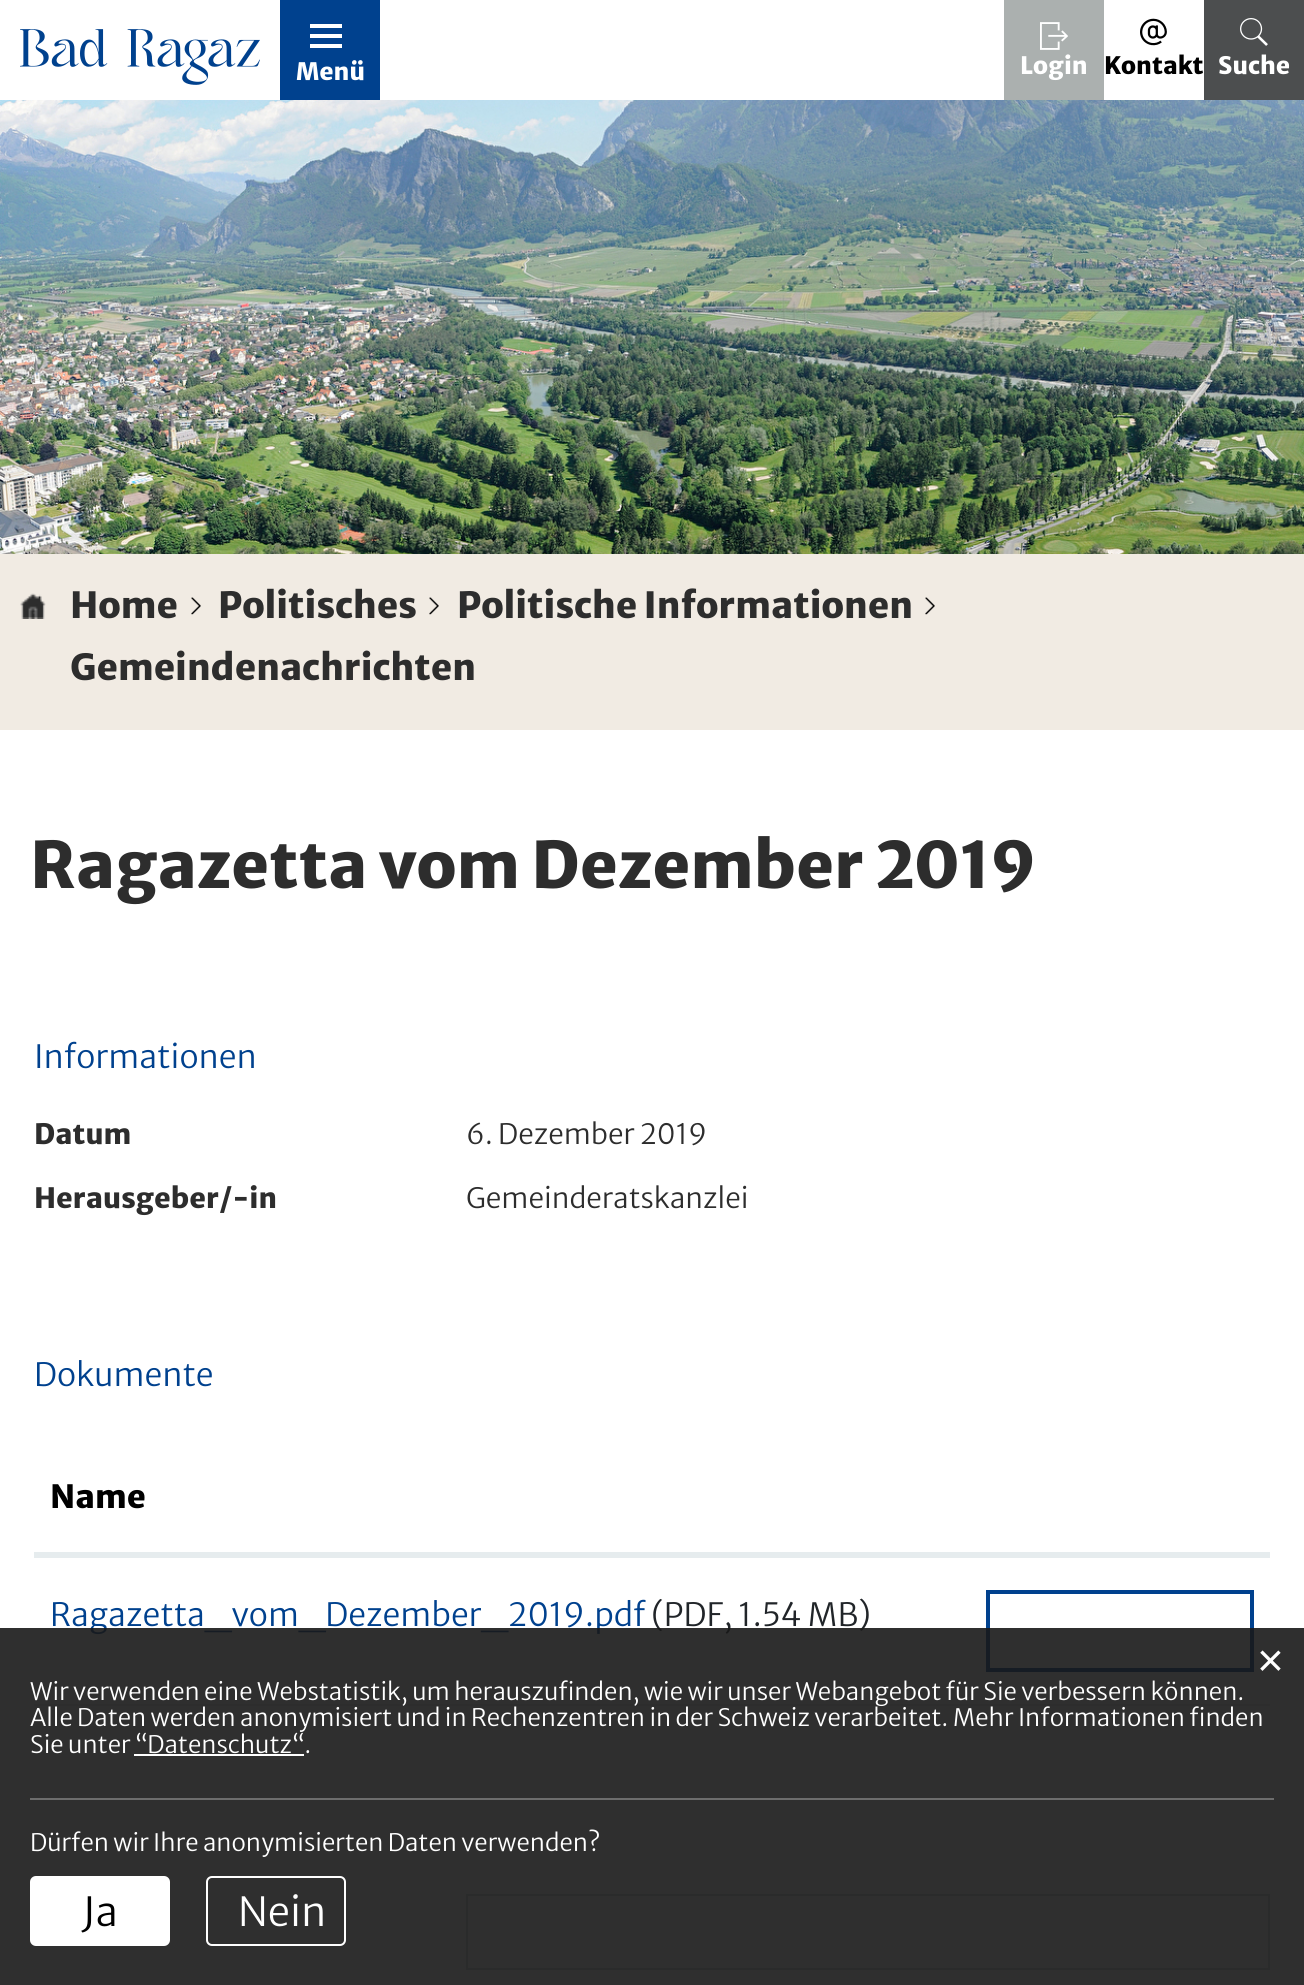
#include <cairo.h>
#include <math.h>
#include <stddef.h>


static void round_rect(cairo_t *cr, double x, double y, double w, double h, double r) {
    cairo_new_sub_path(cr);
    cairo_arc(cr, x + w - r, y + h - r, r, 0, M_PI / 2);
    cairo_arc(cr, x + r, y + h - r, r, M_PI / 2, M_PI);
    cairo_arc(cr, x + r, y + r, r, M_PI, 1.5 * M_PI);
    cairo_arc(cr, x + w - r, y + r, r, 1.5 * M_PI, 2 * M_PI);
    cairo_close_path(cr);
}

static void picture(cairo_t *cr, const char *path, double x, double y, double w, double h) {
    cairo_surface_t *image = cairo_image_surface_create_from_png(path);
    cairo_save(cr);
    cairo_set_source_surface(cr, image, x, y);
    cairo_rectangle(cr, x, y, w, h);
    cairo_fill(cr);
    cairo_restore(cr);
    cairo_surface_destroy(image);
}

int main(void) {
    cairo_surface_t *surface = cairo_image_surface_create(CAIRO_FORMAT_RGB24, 1304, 1985);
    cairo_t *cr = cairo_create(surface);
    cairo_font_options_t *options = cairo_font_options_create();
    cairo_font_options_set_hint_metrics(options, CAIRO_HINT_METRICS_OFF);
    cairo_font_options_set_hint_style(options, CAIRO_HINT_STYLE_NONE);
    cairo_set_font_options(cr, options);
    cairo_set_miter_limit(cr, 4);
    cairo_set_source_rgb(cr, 1, 1, 1);
    cairo_paint(cr);
    picture(cr, "img1.png", 20, 29, 240, 56);
    cairo_set_source_rgb(cr, 0, 0.255, 0.557);
    cairo_rectangle(cr, 280, 0, 100, 100);
    cairo_fill(cr);
    cairo_set_source_rgb(cr, 1, 1, 1);
    cairo_rectangle(cr, 310, 24, 32, 4);
    cairo_fill(cr);
    cairo_rectangle(cr, 310, 34, 32, 4);
    cairo_fill(cr);
    cairo_rectangle(cr, 310, 44, 32, 4);
    cairo_fill(cr);
    cairo_select_font_face(cr, "Merriweather Sans ExtraBold", CAIRO_FONT_SLANT_NORMAL, CAIRO_FONT_WEIGHT_NORMAL);
    cairo_set_font_size(cr, 24);
    cairo_move_to(cr, 296, 80);
    cairo_show_text(cr, "Menü");
    cairo_set_source_rgb(cr, 0.671, 0.69, 0.686);
    cairo_rectangle(cr, 1004, 0, 100, 100);
    cairo_fill(cr);
    picture(cr, "img2.png", 1040, 22, 28, 28);
    cairo_set_source_rgb(cr, 1, 1, 1);
    cairo_move_to(cr, 1020, 74);
    cairo_show_text(cr, "Login");
    picture(cr, "img3.png", 1140, 18, 27, 28);
    cairo_set_source_rgb(cr, 0, 0, 0);
    cairo_move_to(cr, 1104, 74);
    cairo_show_text(cr, "Kontakt");
    cairo_set_source_rgb(cr, 0.298, 0.306, 0.31);
    cairo_rectangle(cr, 1204, 0, 100, 100);
    cairo_fill(cr);
    picture(cr, "img4.png", 1240, 18, 28, 28);
    cairo_set_source_rgb(cr, 1, 1, 1);
    cairo_move_to(cr, 1218, 74);
    cairo_show_text(cr, "Suche");
    picture(cr, "img5.png", 0, 100, 1304, 454);
    cairo_set_source_rgb(cr, 0.945, 0.918, 0.89);
    cairo_rectangle(cr, 0, 554, 1304, 176);
    cairo_fill(cr);
    picture(cr, "img6.png", 20, 593, 26, 26);
    cairo_set_font_size(cr, 36);
    cairo_set_source_rgb(cr, 0.176, 0.176, 0.176);
    cairo_move_to(cr, 70, 618);
    cairo_show_text(cr, "Home");
    picture(cr, "img7.png", 191, 597, 10, 18);
    cairo_move_to(cr, 218, 618);
    cairo_show_text(cr, "Politisches");
    picture(cr, "img7.png", 429, 597, 10, 18);
    cairo_move_to(cr, 457, 618);
    cairo_show_text(cr, "Politische Informationen");
    picture(cr, "img7.png", 925, 597, 10, 18);
    cairo_move_to(cr, 70, 680);
    cairo_show_text(cr, "Gemeindenachrichten");
    cairo_set_font_size(cr, 64);
    cairo_move_to(cr, 30, 888);
    cairo_show_text(cr, "Ragazetta vom Dezember 2019");
    cairo_select_font_face(cr, "Merriweather Sans Light", CAIRO_FONT_SLANT_NORMAL, CAIRO_FONT_WEIGHT_NORMAL);
    cairo_set_font_size(cr, 32);
    cairo_set_source_rgb(cr, 0, 0.255, 0.557);
    cairo_move_to(cr, 34, 1068);
    cairo_show_text(cr, "Informationen");
    cairo_select_font_face(cr, "Merriweather Sans ExtraBold", CAIRO_FONT_SLANT_NORMAL, CAIRO_FONT_WEIGHT_NORMAL);
    cairo_set_font_size(cr, 28);
    cairo_set_source_rgb(cr, 0.176, 0.176, 0.176);
    cairo_move_to(cr, 34, 1144);
    cairo_show_text(cr, "Datum");
    cairo_select_font_face(cr, "Merriweather Sans Light", CAIRO_FONT_SLANT_NORMAL, CAIRO_FONT_WEIGHT_NORMAL);
    cairo_move_to(cr, 466, 1144);
    cairo_show_text(cr, "6. Dezember 2019");
    cairo_select_font_face(cr, "Merriweather Sans ExtraBold", CAIRO_FONT_SLANT_NORMAL, CAIRO_FONT_WEIGHT_NORMAL);
    cairo_move_to(cr, 34, 1208);
    cairo_show_text(cr, "Herausgeber/-in");
    cairo_select_font_face(cr, "Merriweather Sans Light", CAIRO_FONT_SLANT_NORMAL, CAIRO_FONT_WEIGHT_NORMAL);
    cairo_move_to(cr, 466, 1208);
    cairo_show_text(cr, "Gemeinderatskanzlei");
    cairo_set_font_size(cr, 32);
    cairo_set_source_rgb(cr, 0, 0.255, 0.557);
    cairo_move_to(cr, 34, 1386);
    cairo_show_text(cr, "Dokumente");
    cairo_set_source_rgb(cr, 0.902, 0.925, 0.933);
    cairo_rectangle(cr, 34, 1704, 1236, 2);
    cairo_fill(cr);
    cairo_rectangle(cr, 34, 1552, 1236, 4);
    cairo_fill(cr);
    cairo_select_font_face(cr, "Merriweather Sans ExtraBold", CAIRO_FONT_SLANT_NORMAL, CAIRO_FONT_WEIGHT_NORMAL);
    cairo_set_source_rgb(cr, 0, 0, 0);
    cairo_move_to(cr, 50, 1508);
    cairo_show_text(cr, "Name");
    cairo_set_source_rgb(cr, 0.902, 0.925, 0.933);
    cairo_rectangle(cr, 34, 1556, 1236, 2);
    cairo_fill(cr);
    cairo_select_font_face(cr, "Merriweather Sans Light", CAIRO_FONT_SLANT_NORMAL, CAIRO_FONT_WEIGHT_NORMAL);
    cairo_set_source_rgb(cr, 0, 0.255, 0.557);
    cairo_move_to(cr, 50, 1626);
    cairo_show_text(cr, "Ragazetta_vom_Dezember_2019.pdf");
    cairo_set_source_rgb(cr, 0.129, 0.145, 0.161);
    cairo_move_to(cr, 651, 1626);
    cairo_show_text(cr, "(PDF, 1.54 MB)");
    cairo_rectangle(cr, 988, 1592, 264, 78);
    cairo_set_source_rgb(cr, 0, 0.255, 0.557);
    cairo_set_line_width(cr, 4);
    cairo_stroke(cr);
    cairo_rectangle(cr, 467, 1895, 802, 74);
    cairo_set_source_rgb(cr, 0.808, 0.831, 0.855);
    cairo_set_line_width(cr, 2);
    cairo_stroke(cr);
    cairo_set_source_rgba(cr, 0.098, 0.098, 0.098, 0.9);
    cairo_rectangle(cr, 0, 1628, 1304, 357);
    cairo_fill(cr);
    cairo_select_font_face(cr, "Liberation Sans", CAIRO_FONT_SLANT_NORMAL, CAIRO_FONT_WEIGHT_NORMAL);
    cairo_set_font_size(cr, 46);
    cairo_set_source_rgb(cr, 1, 1, 1);
    cairo_move_to(cr, 1257, 1676);
    cairo_show_text(cr, "×");
    cairo_set_source_rgb(cr, 0.427, 0.427, 0.427);
    cairo_rectangle(cr, 30, 1798, 1244, 2);
    cairo_fill(cr);
    cairo_select_font_face(cr, "Merriweather Sans Light", CAIRO_FONT_SLANT_NORMAL, CAIRO_FONT_WEIGHT_NORMAL);
    cairo_set_font_size(cr, 24);
    cairo_set_source_rgb(cr, 1, 1, 1);
    cairo_move_to(cr, 30, 1700);
    cairo_show_text(cr, "Wir verwenden eine Webstatistik, um herauszufinden, wie wir unser Webangebot für Sie verbessern können.");
    cairo_move_to(cr, 30, 1726);
    cairo_show_text(cr, "Alle Daten werden anonymisiert und in Rechenzentren in der Schweiz verarbeitet. Mehr Informationen finden");
    cairo_move_to(cr, 30, 1753);
    cairo_show_text(cr, "Sie unter “Datenschutz“.");
    cairo_rectangle(cr, 134, 1754, 170, 2);
    cairo_fill(cr);
    cairo_move_to(cr, 30, 1851);
    cairo_show_text(cr, "Dürfen wir Ihre anonymisierten Daten verwenden?");
    round_rect(cr, 31, 1877, 138, 68, 5);
    cairo_fill_preserve(cr);
    cairo_stroke(cr);
    cairo_set_font_size(cr, 40);
    cairo_set_source_rgb(cr, 0, 0, 0);
    cairo_move_to(cr, 82, 1926);
    cairo_show_text(cr, "Ja");
    round_rect(cr, 207, 1877, 138, 68, 5);
    cairo_set_source_rgb(cr, 1, 1, 1);
    cairo_stroke(cr);
    cairo_move_to(cr, 238, 1926);
    cairo_show_text(cr, "Nein");
    cairo_surface_write_to_png(surface, "page.png");
    cairo_font_options_destroy(options);
    cairo_destroy(cr);
    cairo_surface_destroy(surface);
    return 0;
}
